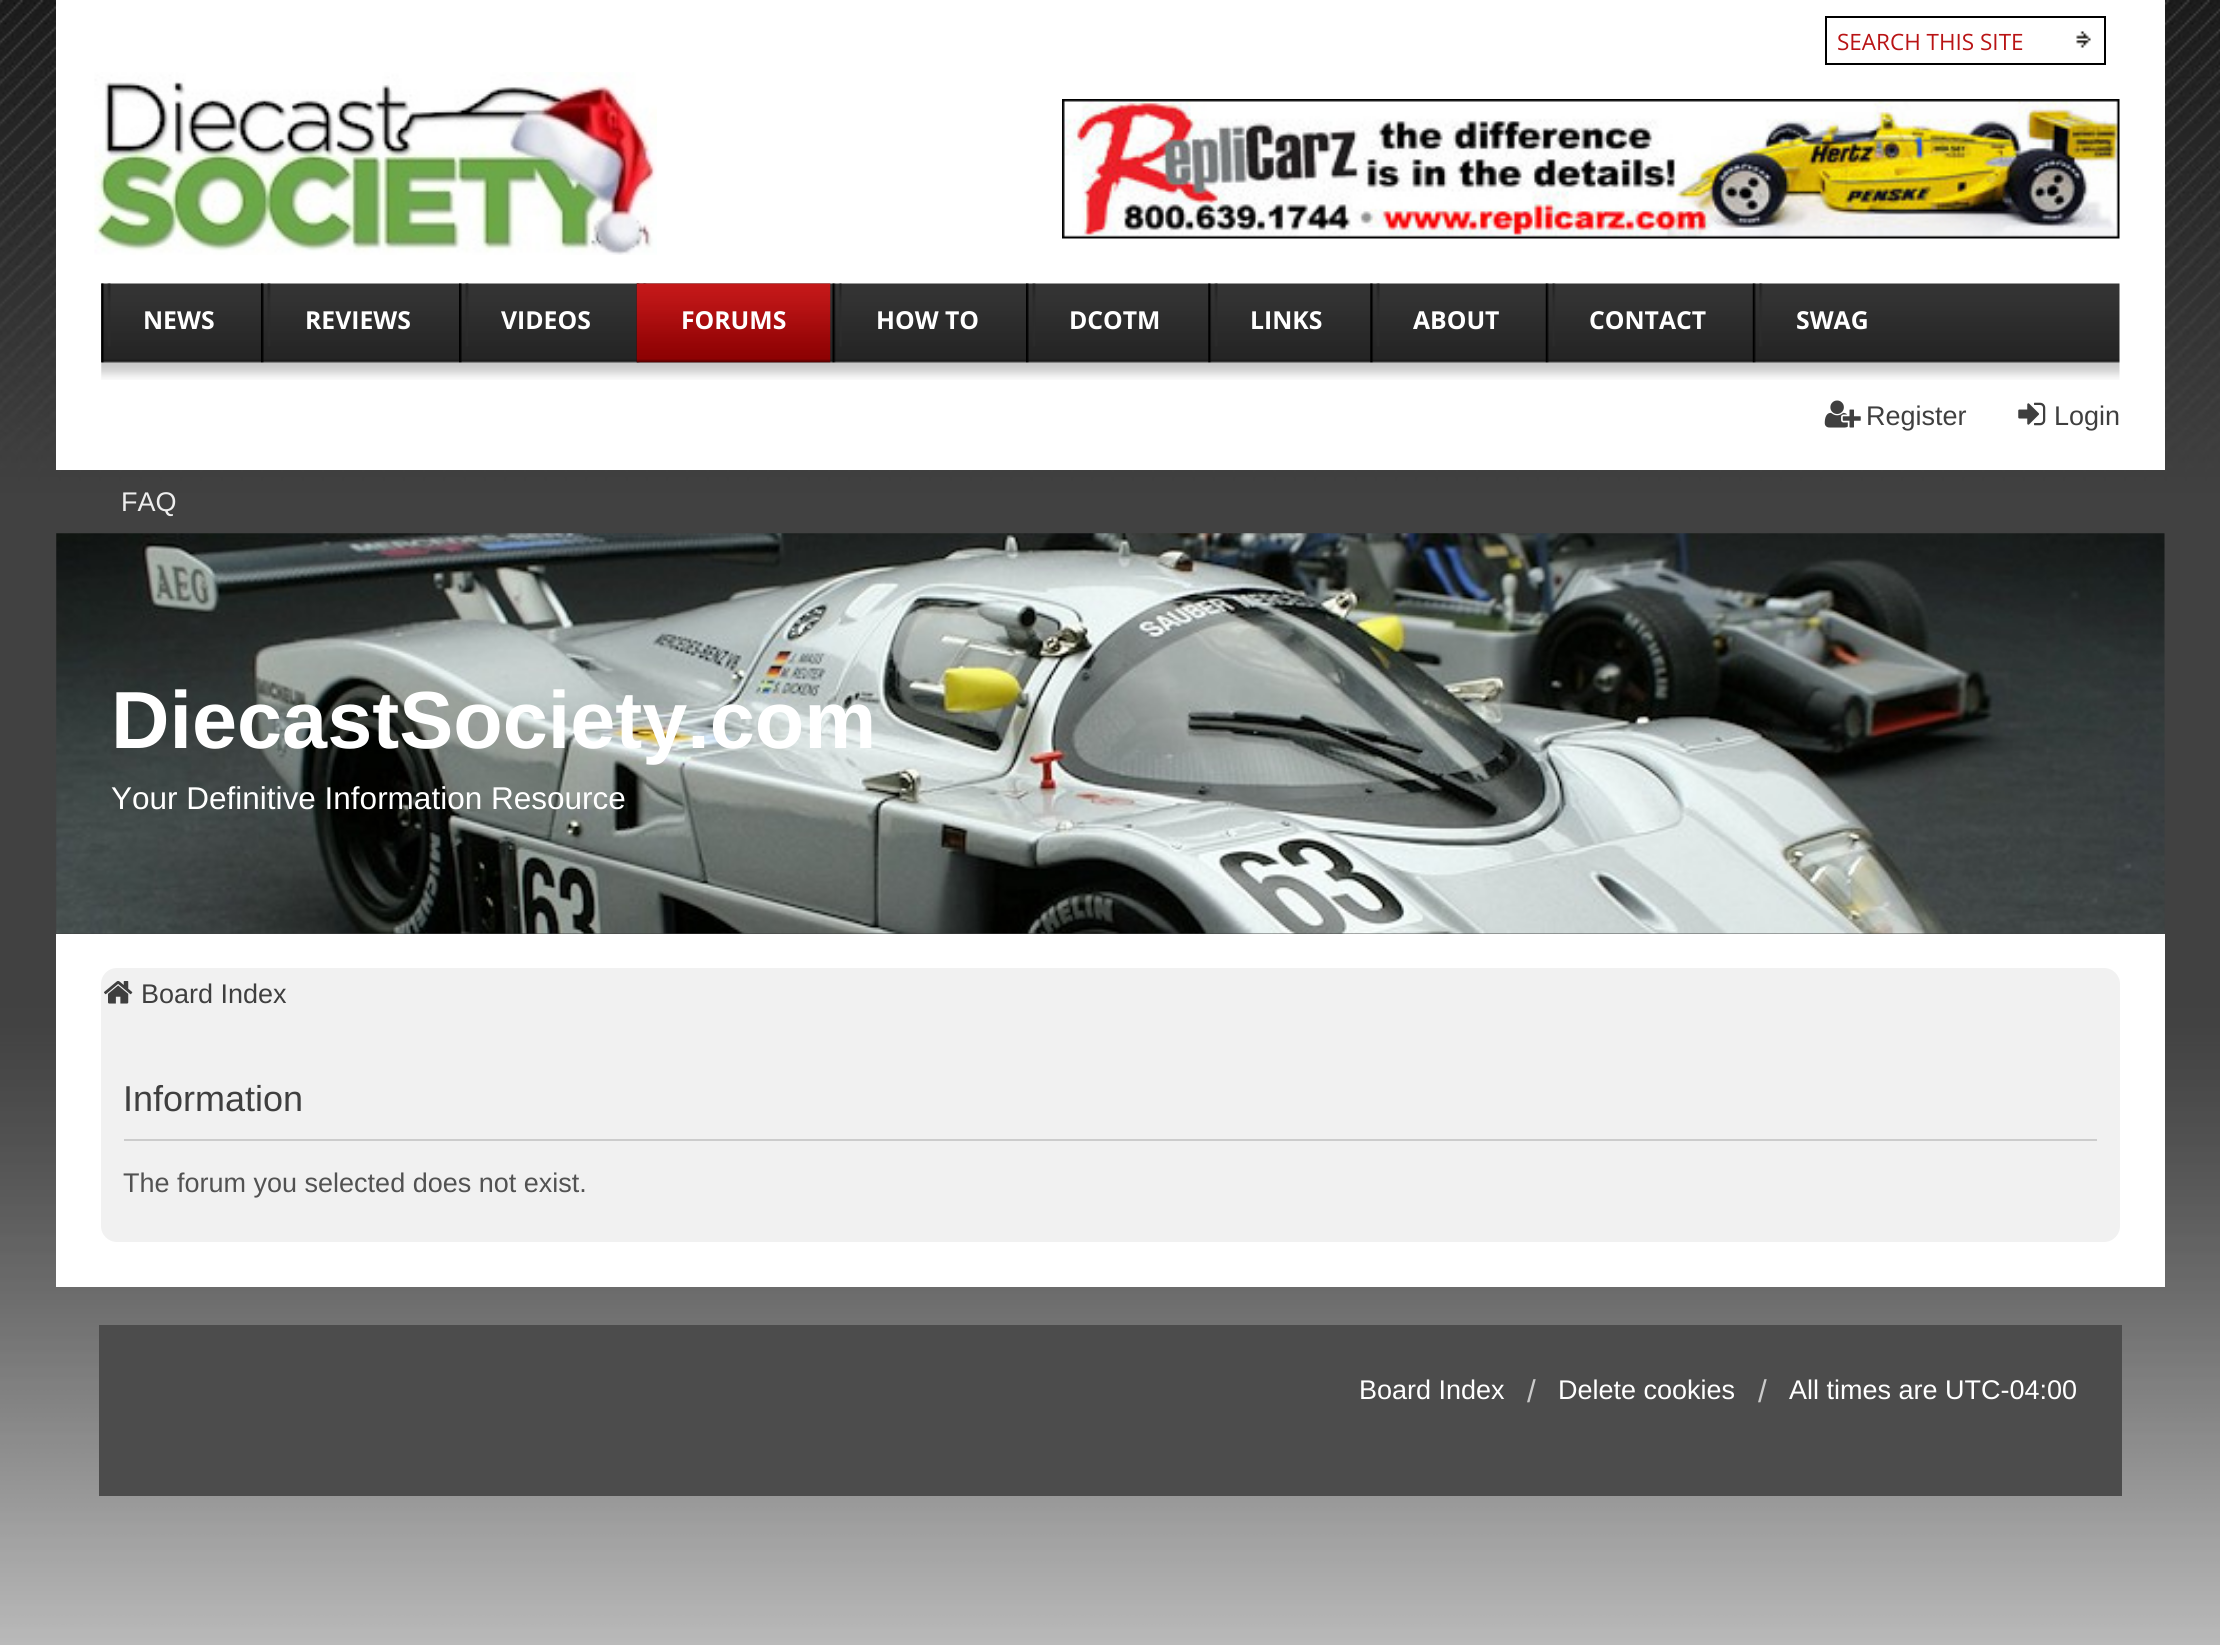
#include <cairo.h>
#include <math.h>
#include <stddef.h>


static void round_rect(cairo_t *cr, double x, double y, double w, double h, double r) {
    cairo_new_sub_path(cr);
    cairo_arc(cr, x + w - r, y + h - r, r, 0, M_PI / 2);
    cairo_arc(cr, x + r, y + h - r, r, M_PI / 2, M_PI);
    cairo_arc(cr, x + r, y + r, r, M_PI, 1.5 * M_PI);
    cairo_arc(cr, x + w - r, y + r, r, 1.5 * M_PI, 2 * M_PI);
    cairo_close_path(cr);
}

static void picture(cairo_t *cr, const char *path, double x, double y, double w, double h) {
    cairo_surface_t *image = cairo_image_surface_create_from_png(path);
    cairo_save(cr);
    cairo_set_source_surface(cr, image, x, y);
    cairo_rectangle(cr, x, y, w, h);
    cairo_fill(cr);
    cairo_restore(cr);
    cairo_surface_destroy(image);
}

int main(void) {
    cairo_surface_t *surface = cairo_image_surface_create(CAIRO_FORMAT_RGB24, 2220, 1645);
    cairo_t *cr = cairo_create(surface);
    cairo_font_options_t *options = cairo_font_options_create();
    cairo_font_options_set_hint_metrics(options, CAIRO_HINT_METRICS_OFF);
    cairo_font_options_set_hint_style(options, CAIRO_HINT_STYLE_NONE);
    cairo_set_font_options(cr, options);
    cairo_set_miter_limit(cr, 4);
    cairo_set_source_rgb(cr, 1, 1, 1);
    cairo_paint(cr);
    picture(cr, "img1.png", 0, 0, 2220, 1645);
    cairo_set_source_rgb(cr, 1, 1, 1);
    cairo_rectangle(cr, 56, 0, 2109, 470);
    cairo_fill(cr);
    picture(cr, "img2.png", 101, 283, 2019, 97);
    cairo_rectangle(cr, 1826, 17, 279, 47);
    cairo_set_source_rgb(cr, 0, 0, 0);
    cairo_stroke(cr);
    cairo_select_font_face(cr, "Open Sans", CAIRO_FONT_SLANT_NORMAL, CAIRO_FONT_WEIGHT_NORMAL);
    cairo_set_font_size(cr, 22.5);
    cairo_set_source_rgb(cr, 0.725, 0.078, 0.082);
    cairo_move_to(cr, 1837, 50);
    cairo_show_text(cr, "SEARCH THIS SITE");
    picture(cr, "img3.png", 2076, 31, 15, 17);
    picture(cr, "img4.png", 94, 72, 563, 183);
    picture(cr, "img5.png", 1062, 99, 1058, 140);
    picture(cr, "img6.png", 101, 283, 10, 80);
    cairo_select_font_face(cr, "Open Sans", CAIRO_FONT_SLANT_NORMAL, CAIRO_FONT_WEIGHT_BOLD);
    cairo_set_font_size(cr, 24.75);
    cairo_set_source_rgb(cr, 1, 1, 1);
    cairo_move_to(cr, 143, 329);
    cairo_show_text(cr, "NEWS");
    picture(cr, "img7.png", 261, 283, 10, 80);
    cairo_move_to(cr, 305, 329);
    cairo_show_text(cr, "REVIEWS");
    picture(cr, "img7.png", 459, 283, 10, 80);
    cairo_move_to(cr, 501, 329);
    cairo_show_text(cr, "VIDEOS");
    picture(cr, "img8.png", 636, 283, 11, 80);
    picture(cr, "img9.png", 636, 283, 195, 80);
    cairo_move_to(cr, 681, 329);
    cairo_show_text(cr, "FORUMS");
    picture(cr, "img10.png", 832, 283, 10, 80);
    cairo_move_to(cr, 876, 329);
    cairo_show_text(cr, "HOW TO");
    picture(cr, "img7.png", 1026, 283, 10, 80);
    cairo_move_to(cr, 1069, 329);
    cairo_show_text(cr, "DCOTM");
    picture(cr, "img11.png", 1208, 283, 10, 80);
    cairo_move_to(cr, 1250, 329);
    cairo_show_text(cr, "LINKS");
    picture(cr, "img12.png", 1370, 283, 10, 80);
    cairo_move_to(cr, 1413, 329);
    cairo_show_text(cr, "ABOUT");
    picture(cr, "img13.png", 1545, 283, 11, 80);
    cairo_move_to(cr, 1589, 329);
    cairo_show_text(cr, "CONTACT");
    picture(cr, "img8.png", 1752, 283, 11, 80);
    cairo_move_to(cr, 1796, 329);
    cairo_show_text(cr, "SWAG");
    picture(cr, "img14.png", 1824, 400, 37, 28);
    cairo_select_font_face(cr, "Liberation Sans", CAIRO_FONT_SLANT_NORMAL, CAIRO_FONT_WEIGHT_NORMAL);
    cairo_set_font_size(cr, 27);
    cairo_set_source_rgb(cr, 0.247, 0.247, 0.247);
    cairo_move_to(cr, 1866, 425);
    cairo_show_text(cr, "Register");
    picture(cr, "img15.png", 2018, 402, 28, 24);
    cairo_move_to(cr, 2054, 425);
    cairo_show_text(cr, "Login");
    cairo_set_source_rgb(cr, 0.933, 0.933, 0.933);
    cairo_move_to(cr, 121, 511);
    cairo_show_text(cr, "FAQ");
    picture(cr, "img16.png", 56, 533, 2109, 401);
    cairo_select_font_face(cr, "Liberation Sans", CAIRO_FONT_SLANT_NORMAL, CAIRO_FONT_WEIGHT_BOLD);
    cairo_set_font_size(cr, 81);
    cairo_set_source_rgb(cr, 1, 1, 1);
    cairo_move_to(cr, 111, 748);
    cairo_show_text(cr, "DiecastSociety.com");
    cairo_select_font_face(cr, "Liberation Sans", CAIRO_FONT_SLANT_NORMAL, CAIRO_FONT_WEIGHT_NORMAL);
    cairo_set_font_size(cr, 31.5);
    cairo_move_to(cr, 111, 809);
    cairo_show_text(cr, "Your Definitive Information Resource");
    cairo_rectangle(cr, 56, 934, 2109, 353);
    cairo_fill(cr);
    cairo_set_source_rgb(cr, 0.945, 0.945, 0.945);
    round_rect(cr, 101, 968, 2019, 274, 16);
    cairo_fill(cr);
    picture(cr, "img17.png", 104, 981, 29, 23);
    cairo_set_font_size(cr, 27);
    cairo_set_source_rgb(cr, 0.247, 0.247, 0.247);
    cairo_move_to(cr, 141, 1003);
    cairo_show_text(cr, "Board Index");
    cairo_set_source_rgb(cr, 0.8, 0.8, 0.8);
    cairo_rectangle(cr, 124, 1139, 1973, 2);
    cairo_fill(cr);
    cairo_set_font_size(cr, 36);
    cairo_set_source_rgb(cr, 0.247, 0.247, 0.247);
    cairo_move_to(cr, 123, 1111);
    cairo_show_text(cr, "Information");
    cairo_set_font_size(cr, 27);
    cairo_set_source_rgb(cr, 0.322, 0.322, 0.322);
    cairo_move_to(cr, 123, 1192);
    cairo_show_text(cr, "The forum you selected does not exist.");
    cairo_set_source_rgb(cr, 0.298, 0.298, 0.298);
    cairo_rectangle(cr, 99, 1325, 2023, 171);
    cairo_fill(cr);
    cairo_set_source_rgb(cr, 1, 1, 1);
    cairo_move_to(cr, 1359, 1399);
    cairo_show_text(cr, "Board Index");
    cairo_set_font_size(cr, 31.5);
    cairo_set_source_rgb(cr, 0.792, 0.792, 0.792);
    cairo_move_to(cr, 1527, 1402);
    cairo_show_text(cr, "/");
    cairo_set_font_size(cr, 27);
    cairo_set_source_rgb(cr, 1, 1, 1);
    cairo_move_to(cr, 1558, 1399);
    cairo_show_text(cr, "Delete cookies");
    cairo_set_font_size(cr, 31.5);
    cairo_set_source_rgb(cr, 0.792, 0.792, 0.792);
    cairo_move_to(cr, 1758, 1402);
    cairo_show_text(cr, "/");
    cairo_set_font_size(cr, 27);
    cairo_set_source_rgb(cr, 1, 1, 1);
    cairo_move_to(cr, 1789, 1399);
    cairo_show_text(cr, "All times are UTC-04:00");
    cairo_surface_write_to_png(surface, "page.png");
    cairo_font_options_destroy(options);
    cairo_destroy(cr);
    cairo_surface_destroy(surface);
    return 0;
}
